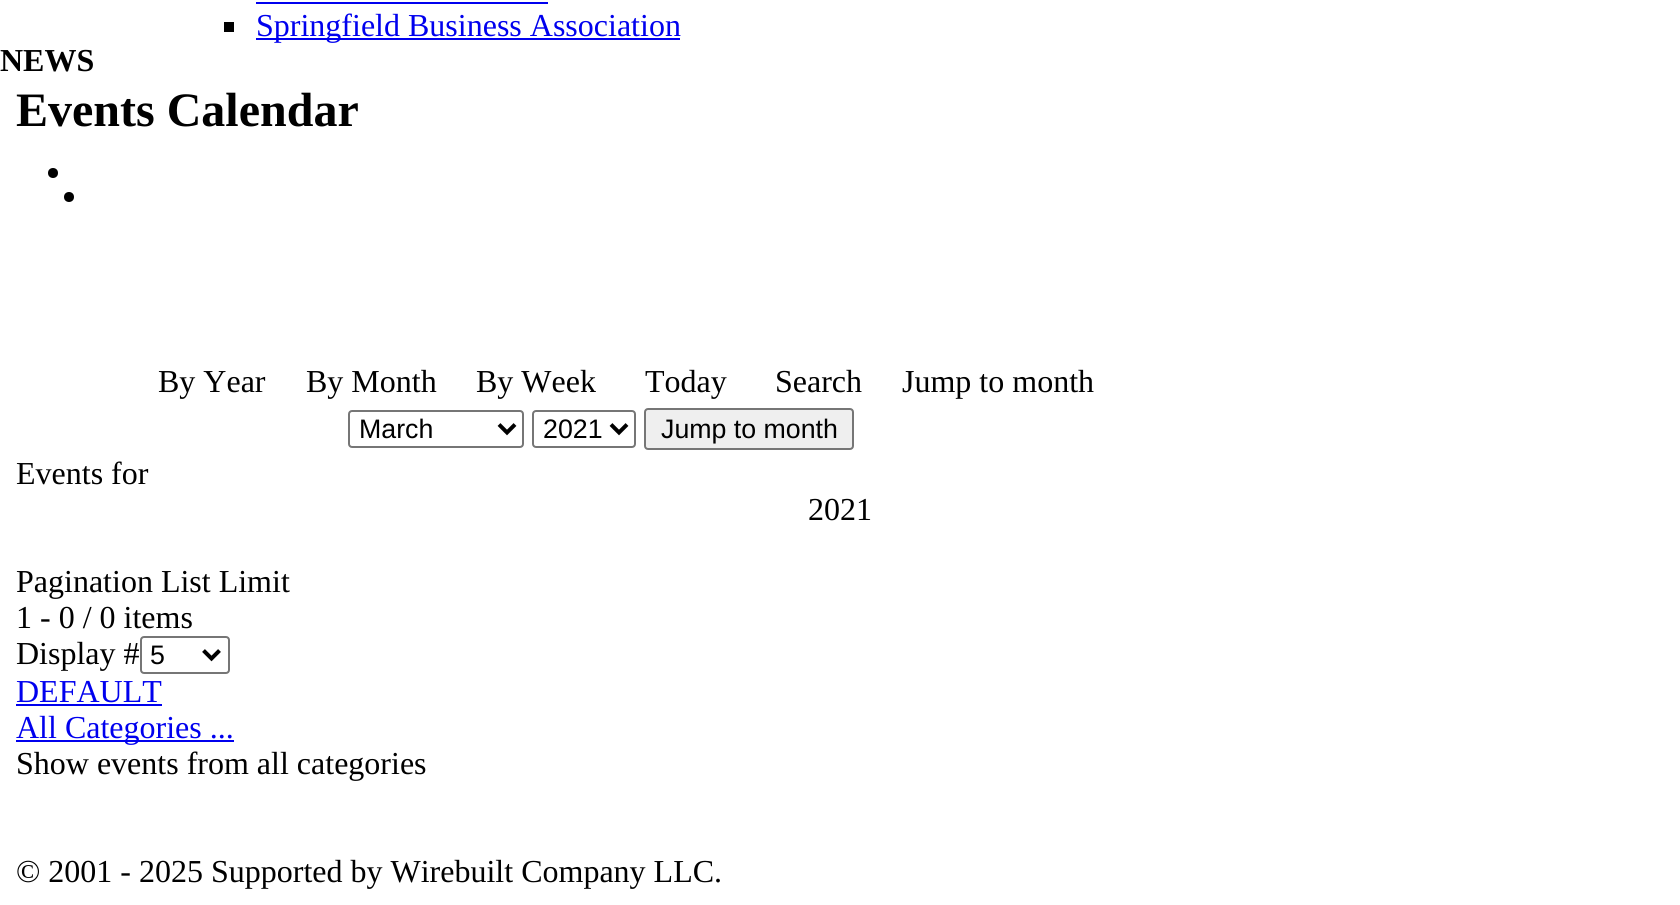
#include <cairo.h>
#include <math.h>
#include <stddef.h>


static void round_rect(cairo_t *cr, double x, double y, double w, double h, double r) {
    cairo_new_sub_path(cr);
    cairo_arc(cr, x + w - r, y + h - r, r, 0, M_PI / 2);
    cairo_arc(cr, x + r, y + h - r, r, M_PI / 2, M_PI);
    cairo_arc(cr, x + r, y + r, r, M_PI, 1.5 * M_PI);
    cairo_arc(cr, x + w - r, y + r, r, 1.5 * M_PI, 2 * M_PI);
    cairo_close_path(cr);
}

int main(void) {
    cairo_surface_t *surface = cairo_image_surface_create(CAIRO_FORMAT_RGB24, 1680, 905);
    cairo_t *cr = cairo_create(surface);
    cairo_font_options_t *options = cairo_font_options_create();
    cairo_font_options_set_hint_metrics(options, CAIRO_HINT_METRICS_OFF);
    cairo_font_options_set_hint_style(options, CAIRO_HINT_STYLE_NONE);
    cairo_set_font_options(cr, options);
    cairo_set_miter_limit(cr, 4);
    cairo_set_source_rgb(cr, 1, 1, 1);
    cairo_paint(cr);
    cairo_set_source_rgb(cr, 0, 0, 0.933);
    cairo_rectangle(cr, 256, 2, 292, 2);
    cairo_fill(cr);
    cairo_set_source_rgb(cr, 0, 0, 0);
    cairo_rectangle(cr, 224, 22, 10, 10);
    cairo_fill(cr);
    cairo_set_source_rgb(cr, 0, 0, 0.933);
    cairo_rectangle(cr, 256, 38, 424, 2);
    cairo_fill(cr);
    cairo_select_font_face(cr, "Liberation Serif", CAIRO_FONT_SLANT_NORMAL, CAIRO_FONT_WEIGHT_NORMAL);
    cairo_set_font_size(cr, 32);
    cairo_move_to(cr, 256, 36);
    cairo_show_text(cr, "Springfield Business Association");
    cairo_select_font_face(cr, "Liberation Serif", CAIRO_FONT_SLANT_NORMAL, CAIRO_FONT_WEIGHT_BOLD);
    cairo_set_source_rgb(cr, 0, 0, 0);
    cairo_move_to(cr, 0, 71);
    cairo_show_text(cr, "NEWS");
    cairo_new_path(cr);
    cairo_arc(cr, 53, 173, 5, 0, 2 * M_PI);
    cairo_fill(cr);
    cairo_set_font_size(cr, 48);
    cairo_move_to(cr, 16, 126);
    cairo_show_text(cr, "Events Calendar");
    cairo_new_path(cr);
    cairo_arc(cr, 69, 197, 5, 0, 2 * M_PI);
    cairo_fill(cr);
    cairo_select_font_face(cr, "Liberation Serif", CAIRO_FONT_SLANT_NORMAL, CAIRO_FONT_WEIGHT_NORMAL);
    cairo_set_font_size(cr, 32);
    cairo_move_to(cr, 158, 392);
    cairo_show_text(cr, "By Year");
    cairo_move_to(cr, 306, 392);
    cairo_show_text(cr, "By Month");
    cairo_move_to(cr, 476, 392);
    cairo_show_text(cr, "By Week");
    cairo_move_to(cr, 645, 392);
    cairo_show_text(cr, "Today");
    cairo_move_to(cr, 775, 392);
    cairo_show_text(cr, "Search");
    cairo_move_to(cr, 902, 392);
    cairo_show_text(cr, "Jump to month");
    round_rect(cr, 349, 411, 174, 36, 3);
    cairo_set_source_rgb(cr, 0.463, 0.463, 0.463);
    cairo_stroke(cr);
    cairo_new_path(cr);
    cairo_move_to(cr, 499, 424.5);
    cairo_line_to(cr, 507, 432.5);
    cairo_line_to(cr, 515, 424.5);
    cairo_set_source_rgb(cr, 0, 0, 0);
    cairo_set_line_width(cr, 4);
    cairo_stroke(cr);
    cairo_select_font_face(cr, "Liberation Sans", CAIRO_FONT_SLANT_NORMAL, CAIRO_FONT_WEIGHT_NORMAL);
    cairo_set_font_size(cr, 26.75);
    cairo_move_to(cr, 359, 438);
    cairo_show_text(cr, "March");
    round_rect(cr, 533, 411, 102, 36, 3);
    cairo_set_source_rgb(cr, 0.463, 0.463, 0.463);
    cairo_set_line_width(cr, 2);
    cairo_stroke(cr);
    cairo_new_path(cr);
    cairo_move_to(cr, 611, 424.5);
    cairo_line_to(cr, 619, 432.5);
    cairo_line_to(cr, 627, 424.5);
    cairo_set_source_rgb(cr, 0, 0, 0);
    cairo_set_line_width(cr, 4);
    cairo_stroke(cr);
    cairo_move_to(cr, 543, 438);
    cairo_show_text(cr, "2021");
    cairo_set_source_rgb(cr, 0.937, 0.937, 0.937);
    round_rect(cr, 645, 409, 208, 40, 3);
    cairo_fill_preserve(cr);
    cairo_set_source_rgb(cr, 0.463, 0.463, 0.463);
    cairo_set_line_width(cr, 2);
    cairo_stroke(cr);
    cairo_set_source_rgb(cr, 0, 0, 0);
    cairo_move_to(cr, 661, 438);
    cairo_show_text(cr, "Jump to month");
    cairo_select_font_face(cr, "Liberation Serif", CAIRO_FONT_SLANT_NORMAL, CAIRO_FONT_WEIGHT_NORMAL);
    cairo_set_font_size(cr, 32);
    cairo_move_to(cr, 16, 484);
    cairo_show_text(cr, "Events for");
    cairo_move_to(cr, 808, 520);
    cairo_show_text(cr, "2021");
    cairo_move_to(cr, 16, 592);
    cairo_show_text(cr, "Pagination List Limit");
    cairo_move_to(cr, 16, 628);
    cairo_show_text(cr, "1 - 0 / 0 items");
    cairo_move_to(cr, 16, 664);
    cairo_show_text(cr, "Display #");
    round_rect(cr, 141, 637, 88, 36, 3);
    cairo_set_source_rgb(cr, 0.463, 0.463, 0.463);
    cairo_stroke(cr);
    cairo_new_path(cr);
    cairo_move_to(cr, 203.5, 650.5);
    cairo_line_to(cr, 211.5, 658.5);
    cairo_line_to(cr, 219.5, 650.5);
    cairo_set_source_rgb(cr, 0, 0, 0);
    cairo_set_line_width(cr, 4);
    cairo_stroke(cr);
    cairo_select_font_face(cr, "Liberation Sans", CAIRO_FONT_SLANT_NORMAL, CAIRO_FONT_WEIGHT_NORMAL);
    cairo_set_font_size(cr, 26.75);
    cairo_move_to(cr, 150, 664);
    cairo_show_text(cr, "5");
    cairo_select_font_face(cr, "Liberation Serif", CAIRO_FONT_SLANT_NORMAL, CAIRO_FONT_WEIGHT_NORMAL);
    cairo_set_font_size(cr, 32);
    cairo_set_source_rgb(cr, 0, 0, 0.933);
    cairo_move_to(cr, 16, 702);
    cairo_show_text(cr, "DEFAULT");
    cairo_rectangle(cr, 16, 704, 146, 2);
    cairo_fill(cr);
    cairo_rectangle(cr, 16, 740, 218, 2);
    cairo_fill(cr);
    cairo_move_to(cr, 16, 738);
    cairo_show_text(cr, "All Categories ...");
    cairo_set_source_rgb(cr, 0, 0, 0);
    cairo_move_to(cr, 16, 774);
    cairo_show_text(cr, "Show events from all categories");
    cairo_move_to(cr, 16, 882);
    cairo_show_text(cr, "© 2001 - 2025 Supported by Wirebuilt Company LLC.");
    cairo_surface_write_to_png(surface, "page.png");
    cairo_font_options_destroy(options);
    cairo_destroy(cr);
    cairo_surface_destroy(surface);
    return 0;
}
